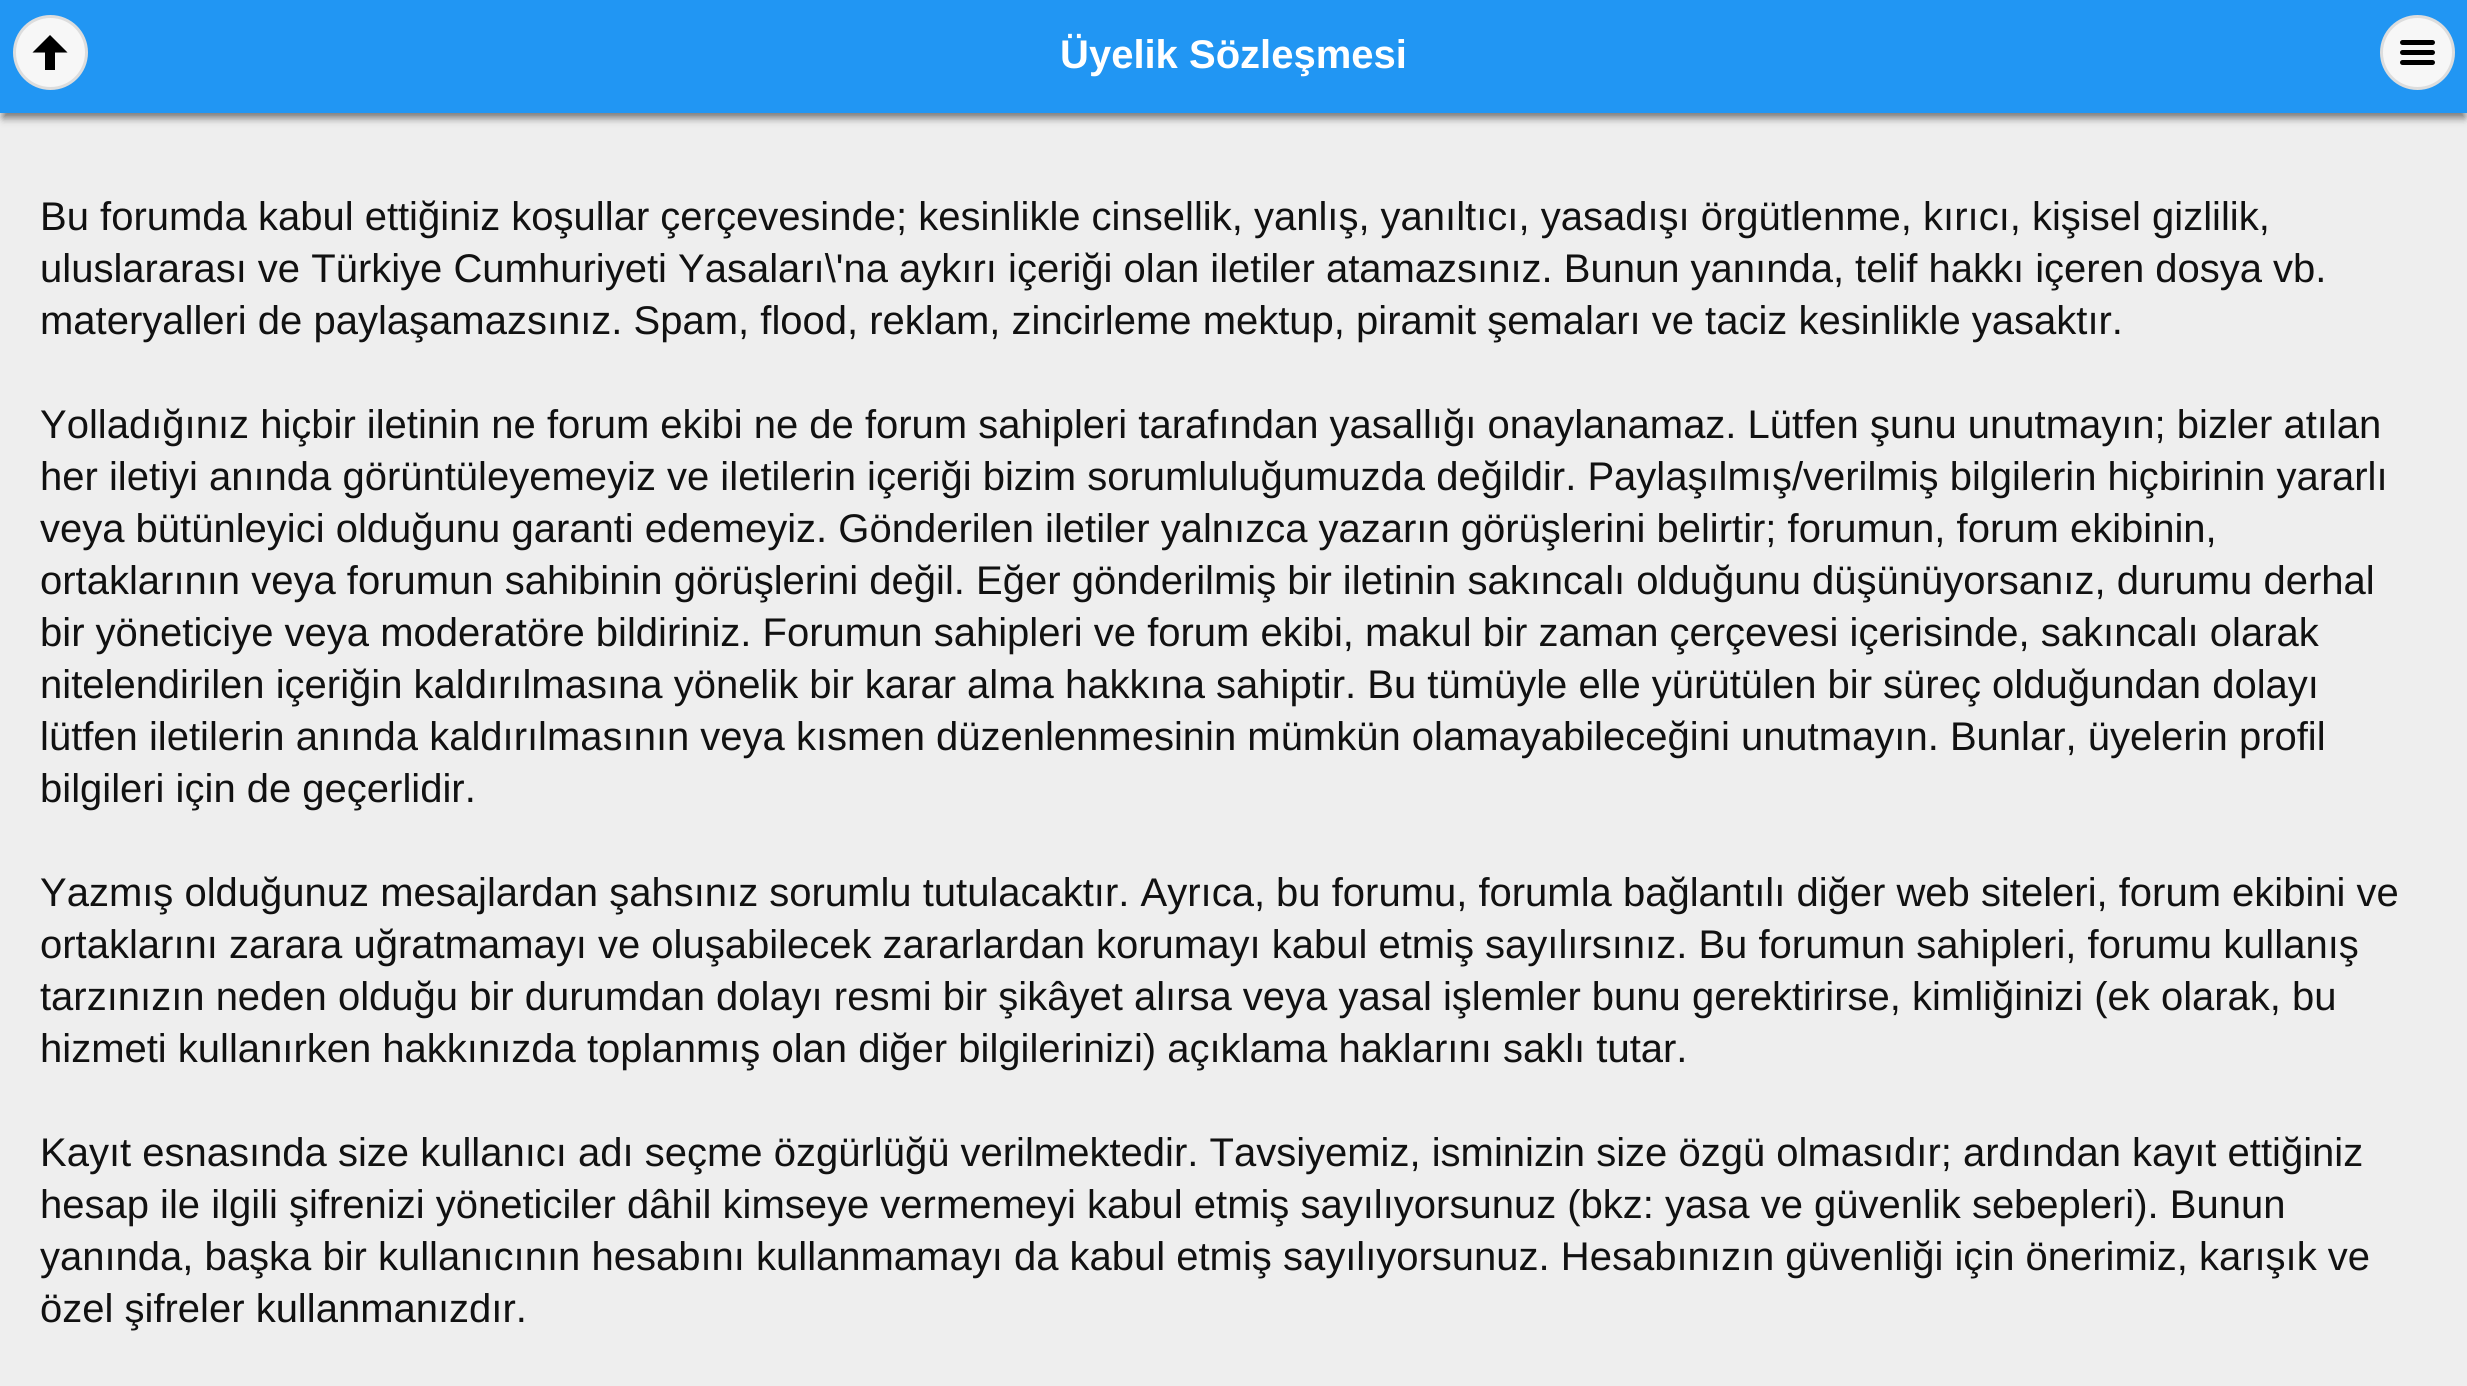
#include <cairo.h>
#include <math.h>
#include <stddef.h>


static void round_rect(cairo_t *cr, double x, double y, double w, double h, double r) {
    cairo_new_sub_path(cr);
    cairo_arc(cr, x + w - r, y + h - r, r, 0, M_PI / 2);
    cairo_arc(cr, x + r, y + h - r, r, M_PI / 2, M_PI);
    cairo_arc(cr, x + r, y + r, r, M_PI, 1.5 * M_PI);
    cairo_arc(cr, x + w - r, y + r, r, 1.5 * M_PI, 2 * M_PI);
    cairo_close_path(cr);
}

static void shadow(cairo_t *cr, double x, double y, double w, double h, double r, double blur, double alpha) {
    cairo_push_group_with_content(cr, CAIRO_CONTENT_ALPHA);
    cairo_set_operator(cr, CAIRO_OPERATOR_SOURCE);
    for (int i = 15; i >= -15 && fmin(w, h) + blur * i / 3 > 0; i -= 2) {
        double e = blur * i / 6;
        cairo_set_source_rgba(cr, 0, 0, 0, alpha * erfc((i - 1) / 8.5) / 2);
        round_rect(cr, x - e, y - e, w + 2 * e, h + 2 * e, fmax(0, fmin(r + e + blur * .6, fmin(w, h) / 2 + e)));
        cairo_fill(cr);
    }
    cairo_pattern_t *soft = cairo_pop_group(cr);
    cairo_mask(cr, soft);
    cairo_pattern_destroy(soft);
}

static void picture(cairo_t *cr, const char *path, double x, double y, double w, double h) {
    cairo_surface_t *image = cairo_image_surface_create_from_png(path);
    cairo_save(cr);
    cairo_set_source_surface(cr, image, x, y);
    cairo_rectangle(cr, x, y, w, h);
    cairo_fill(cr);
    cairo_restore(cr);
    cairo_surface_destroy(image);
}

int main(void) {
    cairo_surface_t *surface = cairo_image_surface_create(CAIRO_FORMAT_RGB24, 2467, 1386);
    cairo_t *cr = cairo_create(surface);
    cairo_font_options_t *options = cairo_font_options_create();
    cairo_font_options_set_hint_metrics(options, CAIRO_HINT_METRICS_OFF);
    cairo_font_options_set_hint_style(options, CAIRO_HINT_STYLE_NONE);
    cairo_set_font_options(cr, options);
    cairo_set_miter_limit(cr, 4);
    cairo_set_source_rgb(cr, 0.933, 0.933, 0.933);
    cairo_paint(cr);
    cairo_set_source_rgb(cr, 0.467, 0.467, 0.467);
    shadow(cr, 3, 8, 2462, 110, 0, 4, 1);
    cairo_set_source_rgb(cr, 0.129, 0.588, 0.953);
    cairo_rectangle(cr, 0, 0, 2467, 113);
    cairo_fill(cr);
    cairo_set_source_rgb(cr, 0.965, 0.965, 0.965);
    cairo_arc(cr, 50.5, 52.5, 36, 0, 2 * M_PI);
    cairo_fill_preserve(cr);
    cairo_set_source_rgb(cr, 0.867, 0.867, 0.867);
    cairo_set_line_width(cr, 3);
    cairo_stroke(cr);
    cairo_set_source_rgb(cr, 0, 0, 0);
    cairo_new_path(cr);
    cairo_move_to(cr, 50, 35);
    cairo_line_to(cr, 32.5, 52.5);
    cairo_line_to(cr, 45, 52.5);
    cairo_line_to(cr, 45, 70);
    cairo_line_to(cr, 55, 70);
    cairo_line_to(cr, 55, 52.5);
    cairo_line_to(cr, 67.5, 52.5);
    cairo_close_path(cr);
    cairo_fill(cr);
    cairo_select_font_face(cr, "Liberation Sans", CAIRO_FONT_SLANT_NORMAL, CAIRO_FONT_WEIGHT_BOLD);
    cairo_set_font_size(cr, 40);
    cairo_set_source_rgb(cr, 1, 1, 1);
    cairo_move_to(cr, 1060, 68);
    cairo_show_text(cr, "Üyelik Sözleşmesi");
    cairo_set_source_rgb(cr, 0.965, 0.965, 0.965);
    cairo_new_path(cr);
    cairo_arc(cr, 2417.5, 52.5, 36, 0, 2 * M_PI);
    cairo_fill_preserve(cr);
    cairo_set_source_rgb(cr, 0.867, 0.867, 0.867);
    cairo_stroke(cr);
    picture(cr, "img1.png", 2400, 40, 35, 25);
    cairo_select_font_face(cr, "Liberation Sans", CAIRO_FONT_SLANT_NORMAL, CAIRO_FONT_WEIGHT_NORMAL);
    cairo_set_source_rgb(cr, 0.067, 0.067, 0.067);
    cairo_move_to(cr, 40, 230);
    cairo_show_text(cr, "Bu forumda kabul ettiğiniz koşullar çerçevesinde; kesinlikle cinsellik, yanlış, yanıltıcı, yasadışı örgütlenme, kırıcı, kişisel gizlilik,");
    cairo_move_to(cr, 40, 282);
    cairo_show_text(cr, "uluslararası ve Türkiye Cumhuriyeti Yasaları\\'na aykırı içeriği olan iletiler atamazsınız. Bunun yanında, telif hakkı içeren dosya vb.");
    cairo_move_to(cr, 40, 334);
    cairo_show_text(cr, "materyalleri de paylaşamazsınız. Spam, flood, reklam, zincirleme mektup, piramit şemaları ve taciz kesinlikle yasaktır.");
    cairo_move_to(cr, 40, 438);
    cairo_show_text(cr, "Yolladığınız hiçbir iletinin ne forum ekibi ne de forum sahipleri tarafından yasallığı onaylanamaz. Lütfen şunu unutmayın; bizler atılan");
    cairo_move_to(cr, 40, 490);
    cairo_show_text(cr, "her iletiyi anında görüntüleyemeyiz ve iletilerin içeriği bizim sorumluluğumuzda değildir. Paylaşılmış/verilmiş bilgilerin hiçbirinin yararlı");
    cairo_move_to(cr, 40, 542);
    cairo_show_text(cr, "veya bütünleyici olduğunu garanti edemeyiz. Gönderilen iletiler yalnızca yazarın görüşlerini belirtir; forumun, forum ekibinin,");
    cairo_move_to(cr, 40, 594);
    cairo_show_text(cr, "ortaklarının veya forumun sahibinin görüşlerini değil. Eğer gönderilmiş bir iletinin sakıncalı olduğunu düşünüyorsanız, durumu derhal");
    cairo_move_to(cr, 40, 646);
    cairo_show_text(cr, "bir yöneticiye veya moderatöre bildiriniz. Forumun sahipleri ve forum ekibi, makul bir zaman çerçevesi içerisinde, sakıncalı olarak");
    cairo_move_to(cr, 40, 698);
    cairo_show_text(cr, "nitelendirilen içeriğin kaldırılmasına yönelik bir karar alma hakkına sahiptir. Bu tümüyle elle yürütülen bir süreç olduğundan dolayı");
    cairo_move_to(cr, 40, 750);
    cairo_show_text(cr, "lütfen iletilerin anında kaldırılmasının veya kısmen düzenlenmesinin mümkün olamayabileceğini unutmayın. Bunlar, üyelerin profil");
    cairo_move_to(cr, 40, 802);
    cairo_show_text(cr, "bilgileri için de geçerlidir.");
    cairo_move_to(cr, 40, 906);
    cairo_show_text(cr, "Yazmış olduğunuz mesajlardan şahsınız sorumlu tutulacaktır. Ayrıca, bu forumu, forumla bağlantılı diğer web siteleri, forum ekibini ve");
    cairo_move_to(cr, 40, 958);
    cairo_show_text(cr, "ortaklarını zarara uğratmamayı ve oluşabilecek zararlardan korumayı kabul etmiş sayılırsınız. Bu forumun sahipleri, forumu kullanış");
    cairo_move_to(cr, 40, 1010);
    cairo_show_text(cr, "tarzınızın neden olduğu bir durumdan dolayı resmi bir şikâyet alırsa veya yasal işlemler bunu gerektirirse, kimliğinizi (ek olarak, bu");
    cairo_move_to(cr, 40, 1062);
    cairo_show_text(cr, "hizmeti kullanırken hakkınızda toplanmış olan diğer bilgilerinizi) açıklama haklarını saklı tutar.");
    cairo_move_to(cr, 40, 1166);
    cairo_show_text(cr, "Kayıt esnasında size kullanıcı adı seçme özgürlüğü verilmektedir. Tavsiyemiz, isminizin size özgü olmasıdır; ardından kayıt ettiğiniz");
    cairo_move_to(cr, 40, 1218);
    cairo_show_text(cr, "hesap ile ilgili şifrenizi yöneticiler dâhil kimseye vermemeyi kabul etmiş sayılıyorsunuz (bkz: yasa ve güvenlik sebepleri). Bunun");
    cairo_move_to(cr, 40, 1270);
    cairo_show_text(cr, "yanında, başka bir kullanıcının hesabını kullanmamayı da kabul etmiş sayılıyorsunuz. Hesabınızın güvenliği için önerimiz, karışık ve");
    cairo_move_to(cr, 40, 1322);
    cairo_show_text(cr, "özel şifreler kullanmanızdır.");
    cairo_surface_write_to_png(surface, "page.png");
    cairo_font_options_destroy(options);
    cairo_destroy(cr);
    cairo_surface_destroy(surface);
    return 0;
}
